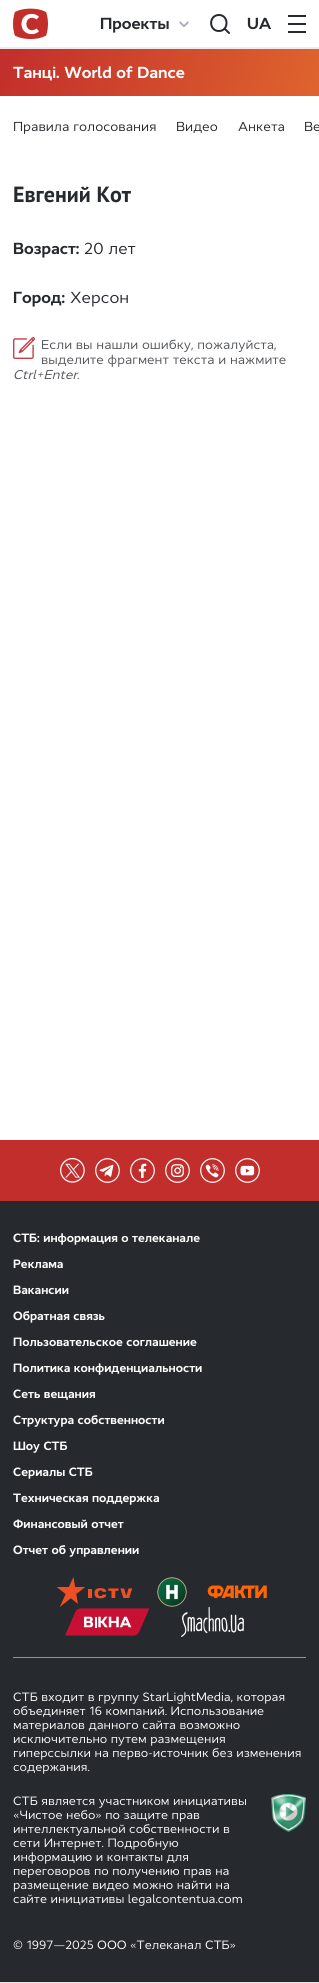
#include <cairo.h>
#include <math.h>
#include <stddef.h>


static void picture(cairo_t *cr, const char *path, double x, double y, double w, double h) {
    cairo_surface_t *image = cairo_image_surface_create_from_png(path);
    cairo_save(cr);
    cairo_set_source_surface(cr, image, x, y);
    cairo_rectangle(cr, x, y, w, h);
    cairo_fill(cr);
    cairo_restore(cr);
    cairo_surface_destroy(image);
}

int main(void) {
    cairo_surface_t *surface = cairo_image_surface_create(CAIRO_FORMAT_RGB24, 319, 1983);
    cairo_t *cr = cairo_create(surface);
    cairo_font_options_t *options = cairo_font_options_create();
    cairo_font_options_set_hint_metrics(options, CAIRO_HINT_METRICS_OFF);
    cairo_font_options_set_hint_style(options, CAIRO_HINT_STYLE_NONE);
    cairo_set_font_options(cr, options);
    cairo_set_miter_limit(cr, 4);
    cairo_pattern_t *gradient;
    cairo_set_source_rgb(cr, 0.894, 0.894, 0.898);
    cairo_paint(cr);
    cairo_set_source_rgb(cr, 1, 1, 1);
    cairo_rectangle(cr, 0, 0, 319, 1140);
    cairo_fill(cr);
    cairo_set_source_rgb(cr, 0.922, 0.922, 0.922);
    cairo_rectangle(cr, 0, 47, 319, 2);
    cairo_fill(cr);
    picture(cr, "img1.png", 13, 8, 35, 31);
    cairo_select_font_face(cr, "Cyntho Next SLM", CAIRO_FONT_SLANT_NORMAL, CAIRO_FONT_WEIGHT_BOLD);
    cairo_set_font_size(cr, 16);
    cairo_set_source_rgb(cr, 0.149, 0.161, 0.18);
    cairo_move_to(cr, 100, 29);
    cairo_show_text(cr, "Проекты");
    picture(cr, "img2.png", 179, 21, 10, 7);
    cairo_new_path(cr);
    cairo_move_to(cr, 219, 31);
    cairo_curve_to(cr, 229, 31, 229, 15, 219, 15);
    cairo_curve_to(cr, 208.5, 15, 208.5, 31, 219, 31);
    cairo_close_path(cr);
    cairo_move_to(cr, 224.5, 28.5);
    cairo_line_to(cr, 229, 33);
    cairo_set_line_cap(cr, CAIRO_LINE_CAP_ROUND);
    cairo_set_line_join(cr, CAIRO_LINE_JOIN_ROUND);
    cairo_stroke(cr);
    cairo_move_to(cr, 247, 29);
    cairo_show_text(cr, "UA");
    cairo_rectangle(cr, 288, 15, 18, 2);
    cairo_fill(cr);
    cairo_rectangle(cr, 288, 23, 18, 2);
    cairo_fill(cr);
    cairo_rectangle(cr, 288, 31, 18, 2);
    cairo_fill(cr);
    gradient = cairo_pattern_create_linear(8, 23, 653, 233);
    cairo_pattern_add_color_stop_rgba(gradient, 0, 0.761, 0.18, 0.173, 1);
    cairo_pattern_add_color_stop_rgba(gradient, 1, 1, 0.631, 0.18, 1);
    cairo_set_source(cr, gradient);
    cairo_pattern_destroy(gradient);
    cairo_rectangle(cr, 0, 49, 319, 47);
    cairo_fill(cr);
    cairo_set_source_rgb(cr, 1, 1, 1);
    cairo_move_to(cr, 13, 78);
    cairo_show_text(cr, "Танці. World of Dance");
    cairo_select_font_face(cr, "Cyntho Next SLM", CAIRO_FONT_SLANT_NORMAL, CAIRO_FONT_WEIGHT_NORMAL);
    cairo_set_font_size(cr, 13);
    cairo_set_source_rgb(cr, 0.149, 0.161, 0.18);
    cairo_move_to(cr, 13, 131);
    cairo_show_text(cr, "Правила голосования");
    cairo_move_to(cr, 176, 131);
    cairo_show_text(cr, "Видео");
    cairo_move_to(cr, 238, 131);
    cairo_show_text(cr, "Анкета");
    cairo_move_to(cr, 304, 131);
    cairo_show_text(cr, "Ве");
    cairo_select_font_face(cr, "PT Sans", CAIRO_FONT_SLANT_NORMAL, CAIRO_FONT_WEIGHT_BOLD);
    cairo_set_font_size(cr, 22);
    cairo_move_to(cr, 13, 202);
    cairo_show_text(cr, "Евгений Кот");
    cairo_select_font_face(cr, "Cyntho Next SLM", CAIRO_FONT_SLANT_NORMAL, CAIRO_FONT_WEIGHT_BOLD);
    cairo_set_font_size(cr, 16);
    cairo_move_to(cr, 13, 254);
    cairo_show_text(cr, "Возраст:");
    cairo_select_font_face(cr, "Cyntho Next SLM", CAIRO_FONT_SLANT_NORMAL, CAIRO_FONT_WEIGHT_NORMAL);
    cairo_move_to(cr, 84, 254);
    cairo_show_text(cr, "20 лет");
    cairo_select_font_face(cr, "Cyntho Next SLM", CAIRO_FONT_SLANT_NORMAL, CAIRO_FONT_WEIGHT_BOLD);
    cairo_move_to(cr, 13, 303);
    cairo_show_text(cr, "Город:");
    cairo_select_font_face(cr, "Cyntho Next SLM", CAIRO_FONT_SLANT_NORMAL, CAIRO_FONT_WEIGHT_NORMAL);
    cairo_move_to(cr, 70, 303);
    cairo_show_text(cr, "Херсон");
    picture(cr, "img3.png", 13, 337, 22, 22);
    cairo_set_font_size(cr, 12.75);
    cairo_set_source_rgb(cr, 0.318, 0.329, 0.345);
    cairo_move_to(cr, 41, 349);
    cairo_show_text(cr, "Если вы нашли ошибку, пожалуйста,");
    cairo_move_to(cr, 41, 364);
    cairo_show_text(cr, "выделите фрагмент текста и нажмите");
    cairo_select_font_face(cr, "Cyntho Next SLM", CAIRO_FONT_SLANT_ITALIC, CAIRO_FONT_WEIGHT_NORMAL);
    cairo_move_to(cr, 13, 379);
    cairo_show_text(cr, "Ctrl+Enter");
    cairo_select_font_face(cr, "Cyntho Next SLM", CAIRO_FONT_SLANT_NORMAL, CAIRO_FONT_WEIGHT_NORMAL);
    cairo_move_to(cr, 77, 379);
    cairo_show_text(cr, ".");
    cairo_set_source_rgb(cr, 0.761, 0.18, 0.173);
    cairo_rectangle(cr, 0, 1140, 319, 61);
    cairo_fill(cr);
    picture(cr, "img4.png", 60, 1158, 25, 25);
    picture(cr, "img5.png", 95, 1158, 25, 25);
    picture(cr, "img6.png", 130, 1158, 25, 25);
    picture(cr, "img7.png", 165, 1158, 25, 25);
    picture(cr, "img8.png", 200, 1158, 25, 25);
    picture(cr, "img9.png", 235, 1158, 25, 25);
    cairo_set_source_rgb(cr, 0.149, 0.161, 0.18);
    cairo_rectangle(cr, 0, 1201, 319, 781);
    cairo_fill(cr);
    cairo_select_font_face(cr, "Cyntho Next SLM", CAIRO_FONT_SLANT_NORMAL, CAIRO_FONT_WEIGHT_BOLD);
    cairo_set_font_size(cr, 12);
    cairo_set_source_rgb(cr, 1, 1, 1);
    cairo_move_to(cr, 13, 1242);
    cairo_show_text(cr, "СТБ: информация о телеканале");
    cairo_move_to(cr, 13, 1268);
    cairo_show_text(cr, "Реклама");
    cairo_move_to(cr, 13, 1294);
    cairo_show_text(cr, "Вакансии");
    cairo_move_to(cr, 13, 1320);
    cairo_show_text(cr, "Обратная связь");
    cairo_move_to(cr, 13, 1346);
    cairo_show_text(cr, "Пользовательское соглашение");
    cairo_move_to(cr, 13, 1372);
    cairo_show_text(cr, "Политика конфиденциальности");
    cairo_move_to(cr, 13, 1398);
    cairo_show_text(cr, "Сеть вещания");
    cairo_move_to(cr, 13, 1424);
    cairo_show_text(cr, "Структура собственности");
    cairo_move_to(cr, 13, 1450);
    cairo_show_text(cr, "Шоу СТБ");
    cairo_move_to(cr, 13, 1476);
    cairo_show_text(cr, "Сериалы СТБ");
    cairo_move_to(cr, 13, 1502);
    cairo_show_text(cr, "Техническая поддержка");
    cairo_move_to(cr, 13, 1528);
    cairo_show_text(cr, "Финансовый отчет");
    cairo_move_to(cr, 13, 1554);
    cairo_show_text(cr, "Отчет об управлении");
    picture(cr, "img10.png", 56, 1577, 77, 30);
    picture(cr, "img11.png", 157, 1577, 30, 30);
    picture(cr, "img12.png", 207, 1585, 60, 14);
    picture(cr, "img13.png", 65, 1608, 85, 28);
    picture(cr, "img14.png", 181, 1607, 63, 30);
    cairo_set_source_rgb(cr, 0.576, 0.58, 0.592);
    cairo_rectangle(cr, 13, 1657, 293, 1);
    cairo_fill(cr);
    cairo_select_font_face(cr, "Cyntho Next SLM", CAIRO_FONT_SLANT_NORMAL, CAIRO_FONT_WEIGHT_NORMAL);
    cairo_set_source_rgb(cr, 1, 1, 1);
    cairo_move_to(cr, 13, 1701);
    cairo_show_text(cr, "СТБ входит в группу StarLightMedia, которая");
    cairo_move_to(cr, 13, 1715);
    cairo_show_text(cr, "объединяет 16 компаний. Использование");
    cairo_move_to(cr, 13, 1729);
    cairo_show_text(cr, "материалов данного сайта возможно");
    cairo_move_to(cr, 13, 1743);
    cairo_show_text(cr, "исключительно путем размещения");
    cairo_move_to(cr, 13, 1757);
    cairo_show_text(cr, "гиперссылки на перво-источник без изменения");
    cairo_move_to(cr, 13, 1771);
    cairo_show_text(cr, "содержания.");
    cairo_move_to(cr, 13, 1805);
    cairo_show_text(cr, "СТБ является участником инициативы");
    picture(cr, "img15.png", 271, 1794, 35, 38);
    cairo_move_to(cr, 13, 1819);
    cairo_show_text(cr, "«Чистое небо» по защите прав");
    cairo_move_to(cr, 13, 1833);
    cairo_show_text(cr, "интеллектуальной собственности в");
    cairo_move_to(cr, 13, 1847);
    cairo_show_text(cr, "сети Интернет. Подробную");
    cairo_move_to(cr, 13, 1861);
    cairo_show_text(cr, "информацию и контакты для");
    cairo_move_to(cr, 13, 1875);
    cairo_show_text(cr, "переговоров по получению прав на");
    cairo_move_to(cr, 13, 1889);
    cairo_show_text(cr, "размещение видео можно найти на");
    cairo_move_to(cr, 13, 1903);
    cairo_show_text(cr, "сайте инициативы legalcontentua.com");
    cairo_move_to(cr, 13, 1949);
    cairo_show_text(cr, "© 1997—2025 ООО «Телеканал СТБ»");
    cairo_surface_write_to_png(surface, "page.png");
    cairo_font_options_destroy(options);
    cairo_destroy(cr);
    cairo_surface_destroy(surface);
    return 0;
}
